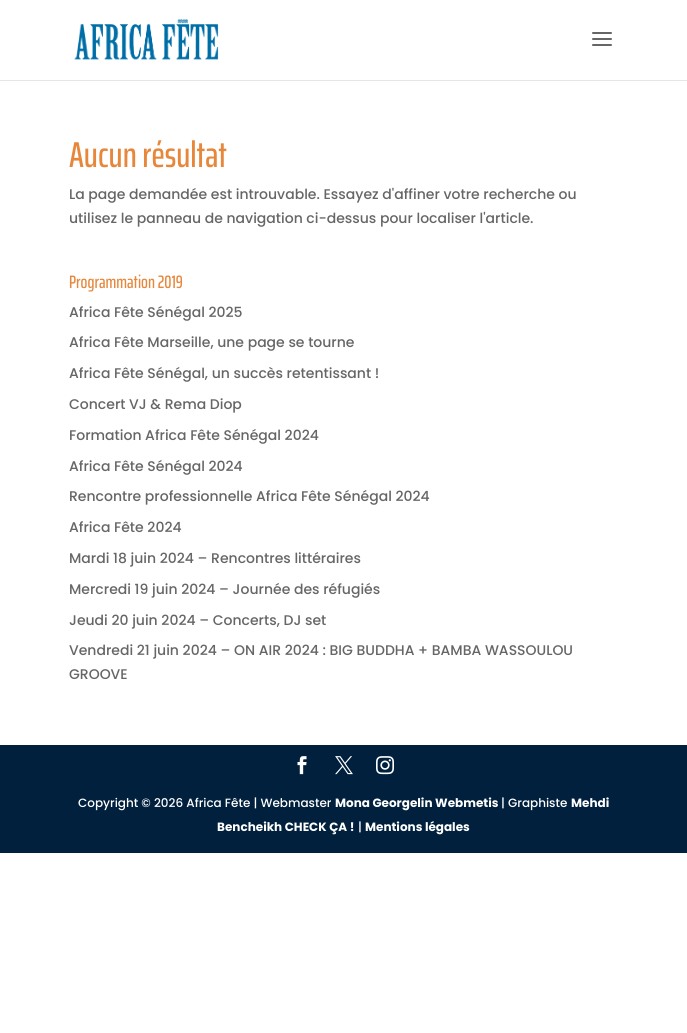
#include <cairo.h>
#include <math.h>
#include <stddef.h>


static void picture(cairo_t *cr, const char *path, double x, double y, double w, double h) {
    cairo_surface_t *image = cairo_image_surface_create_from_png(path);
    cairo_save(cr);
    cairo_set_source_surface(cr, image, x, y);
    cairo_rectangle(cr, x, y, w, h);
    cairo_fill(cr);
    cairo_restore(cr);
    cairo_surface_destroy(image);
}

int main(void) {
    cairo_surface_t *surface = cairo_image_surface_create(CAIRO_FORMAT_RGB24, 687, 1033);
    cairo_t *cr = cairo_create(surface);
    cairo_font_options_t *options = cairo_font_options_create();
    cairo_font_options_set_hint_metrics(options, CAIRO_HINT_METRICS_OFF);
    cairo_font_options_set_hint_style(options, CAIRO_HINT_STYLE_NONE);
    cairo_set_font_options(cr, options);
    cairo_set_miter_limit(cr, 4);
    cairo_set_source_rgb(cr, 1, 1, 1);
    cairo_paint(cr);
    cairo_set_source_rgb(cr, 0.902, 0.902, 0.902);
    cairo_rectangle(cr, 0, 80, 687, 1);
    cairo_fill(cr);
    picture(cr, "img1.png", 74, 18, 145, 42);
    picture(cr, "img2.png", 592, 32, 20, 14);
    cairo_select_font_face(cr, "Saira ExtraCondensed Medium", CAIRO_FONT_SLANT_NORMAL, CAIRO_FONT_WEIGHT_NORMAL);
    cairo_set_font_size(cr, 36);
    cairo_set_source_rgb(cr, 0.902, 0.529, 0.235);
    cairo_move_to(cr, 69, 167);
    cairo_show_text(cr, "Aucun résultat");
    cairo_select_font_face(cr, "Poppins Medium", CAIRO_FONT_SLANT_NORMAL, CAIRO_FONT_WEIGHT_NORMAL);
    cairo_set_font_size(cr, 14);
    cairo_set_source_rgb(cr, 0.4, 0.4, 0.4);
    cairo_move_to(cr, 69, 199);
    cairo_show_text(cr, "La page demandée est introuvable. Essayez d'affiner votre recherche ou");
    cairo_move_to(cr, 69, 223);
    cairo_show_text(cr, "utilisez le panneau de navigation ci-dessus pour localiser l'article.");
    cairo_select_font_face(cr, "Saira ExtraCondensed Medium", CAIRO_FONT_SLANT_NORMAL, CAIRO_FONT_WEIGHT_NORMAL);
    cairo_set_font_size(cr, 18);
    cairo_set_source_rgb(cr, 0.902, 0.529, 0.235);
    cairo_move_to(cr, 69, 288);
    cairo_show_text(cr, "Programmation 2019");
    cairo_select_font_face(cr, "Poppins Medium", CAIRO_FONT_SLANT_NORMAL, CAIRO_FONT_WEIGHT_NORMAL);
    cairo_set_font_size(cr, 14);
    cairo_set_source_rgb(cr, 0.4, 0.4, 0.4);
    cairo_move_to(cr, 69, 317);
    cairo_show_text(cr, "Africa Fête Sénégal 2025");
    cairo_move_to(cr, 69, 347);
    cairo_show_text(cr, "Africa Fête Marseille, une page se tourne");
    cairo_move_to(cr, 69, 378);
    cairo_show_text(cr, "Africa Fête Sénégal, un succès retentissant !");
    cairo_move_to(cr, 69, 409);
    cairo_show_text(cr, "Concert VJ & Rema Diop");
    cairo_move_to(cr, 69, 440);
    cairo_show_text(cr, "Formation Africa Fête Sénégal 2024");
    cairo_move_to(cr, 69, 471);
    cairo_show_text(cr, "Africa Fête Sénégal 2024");
    cairo_move_to(cr, 69, 501);
    cairo_show_text(cr, "Rencontre professionnelle Africa Fête Sénégal 2024");
    cairo_move_to(cr, 69, 532);
    cairo_show_text(cr, "Africa Fête 2024");
    cairo_move_to(cr, 69, 563);
    cairo_show_text(cr, "Mardi 18 juin 2024 – Rencontres littéraires");
    cairo_move_to(cr, 69, 594);
    cairo_show_text(cr, "Mercredi 19 juin 2024 – Journée des réfugiés");
    cairo_move_to(cr, 69, 625);
    cairo_show_text(cr, "Jeudi 20 juin 2024 – Concerts, DJ set");
    cairo_move_to(cr, 69, 655);
    cairo_show_text(cr, "Vendredi 21 juin 2024 – ON AIR 2024 : BIG BUDDHA + BAMBA WASSOULOU");
    cairo_move_to(cr, 69, 679);
    cairo_show_text(cr, "GROOVE");
    cairo_set_source_rgb(cr, 0, 0.125, 0.239);
    cairo_rectangle(cr, 0, 745, 687, 108);
    cairo_fill(cr);
    picture(cr, "img3.png", 297, 756, 10, 19);
    picture(cr, "img4.png", 335, 756, 18, 19);
    picture(cr, "img5.png", 376, 756, 18, 19);
    cairo_set_font_size(cr, 12);
    cairo_set_source_rgb(cr, 1, 1, 1);
    cairo_move_to(cr, 78, 807);
    cairo_show_text(cr, "Copyright © 2026 Africa Fête | Webmaster");
    cairo_select_font_face(cr, "Poppins", CAIRO_FONT_SLANT_NORMAL, CAIRO_FONT_WEIGHT_BOLD);
    cairo_move_to(cr, 335, 807);
    cairo_show_text(cr, "Mona Georgelin Webmetis");
    cairo_select_font_face(cr, "Poppins Medium", CAIRO_FONT_SLANT_NORMAL, CAIRO_FONT_WEIGHT_NORMAL);
    cairo_move_to(cr, 501, 807);
    cairo_show_text(cr, "| Graphiste");
    cairo_select_font_face(cr, "Poppins", CAIRO_FONT_SLANT_NORMAL, CAIRO_FONT_WEIGHT_BOLD);
    cairo_move_to(cr, 571, 807);
    cairo_show_text(cr, "Mehdi");
    cairo_move_to(cr, 217, 831);
    cairo_show_text(cr, "Bencheikh CHECK ÇA !");
    cairo_select_font_face(cr, "Poppins Medium", CAIRO_FONT_SLANT_NORMAL, CAIRO_FONT_WEIGHT_NORMAL);
    cairo_move_to(cr, 358, 831);
    cairo_show_text(cr, "|");
    cairo_select_font_face(cr, "Poppins", CAIRO_FONT_SLANT_NORMAL, CAIRO_FONT_WEIGHT_BOLD);
    cairo_move_to(cr, 365, 831);
    cairo_show_text(cr, "Mentions légales");
    cairo_surface_write_to_png(surface, "page.png");
    cairo_font_options_destroy(options);
    cairo_destroy(cr);
    cairo_surface_destroy(surface);
    return 0;
}
